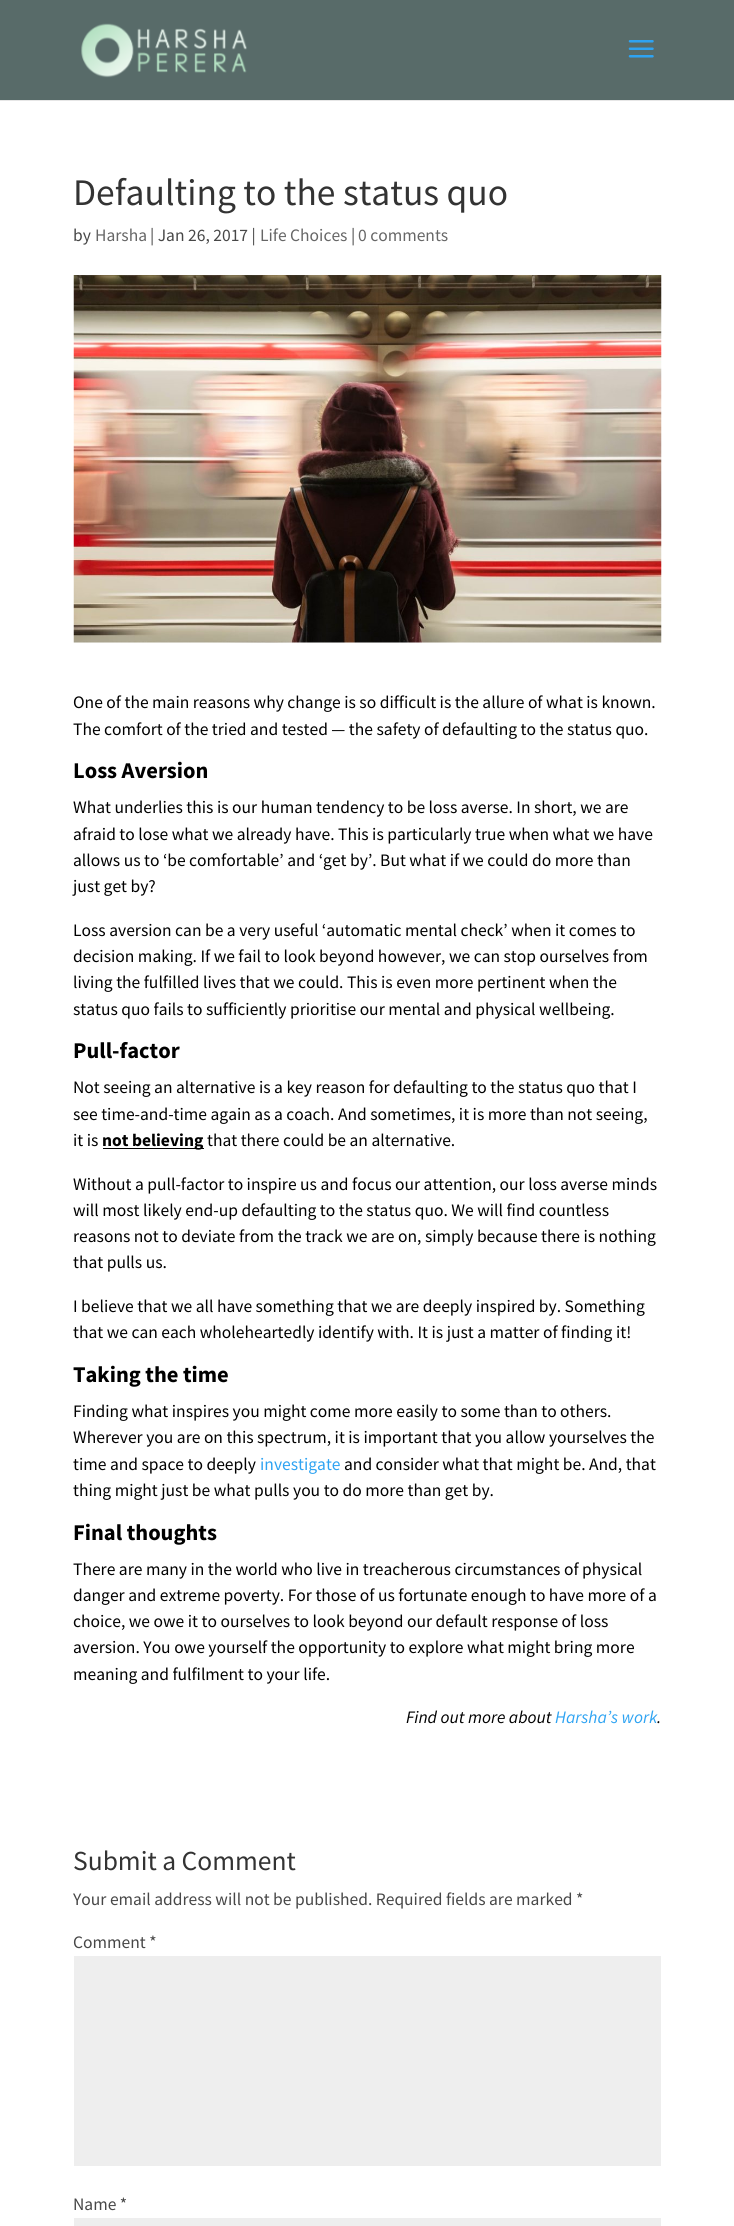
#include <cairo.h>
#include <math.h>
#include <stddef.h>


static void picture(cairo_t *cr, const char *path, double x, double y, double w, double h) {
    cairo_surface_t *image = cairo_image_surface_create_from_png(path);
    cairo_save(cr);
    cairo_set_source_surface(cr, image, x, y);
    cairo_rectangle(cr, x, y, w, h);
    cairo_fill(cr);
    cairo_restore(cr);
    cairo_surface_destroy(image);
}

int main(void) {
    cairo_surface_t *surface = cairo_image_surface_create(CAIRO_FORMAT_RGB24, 734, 2226);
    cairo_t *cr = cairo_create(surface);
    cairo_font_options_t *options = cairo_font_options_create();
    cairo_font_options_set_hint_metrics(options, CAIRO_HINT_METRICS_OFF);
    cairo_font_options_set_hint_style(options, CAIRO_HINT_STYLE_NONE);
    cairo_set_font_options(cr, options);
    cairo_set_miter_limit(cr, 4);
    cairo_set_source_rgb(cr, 0.345, 0.42, 0.412);
    cairo_paint(cr);
    cairo_set_source_rgb(cr, 0.902, 0.902, 0.902);
    cairo_rectangle(cr, 0, 100, 734, 1);
    cairo_fill(cr);
    picture(cr, "img1.png", 81, 23, 166, 55);
    picture(cr, "img2.png", 628, 40, 26, 18);
    cairo_set_source_rgb(cr, 1, 1, 1);
    cairo_rectangle(cr, 0, 101, 734, 2125);
    cairo_fill(cr);
    cairo_select_font_face(cr, "Source Sans Pro", CAIRO_FONT_SLANT_NORMAL, CAIRO_FONT_WEIGHT_NORMAL);
    cairo_set_font_size(cr, 37.5);
    cairo_set_source_rgb(cr, 0.2, 0.2, 0.2);
    cairo_move_to(cr, 73, 205);
    cairo_show_text(cr, "Defaulting to the status quo");
    cairo_set_font_size(cr, 17.5);
    cairo_set_source_rgb(cr, 0.278, 0.278, 0.278);
    cairo_move_to(cr, 73, 241);
    cairo_show_text(cr, "by");
    cairo_set_source_rgb(cr, 0.4, 0.4, 0.4);
    cairo_move_to(cr, 95, 241);
    cairo_show_text(cr, "Harsha");
    cairo_set_source_rgb(cr, 0.278, 0.278, 0.278);
    cairo_move_to(cr, 150, 241);
    cairo_show_text(cr, "| Jan 26, 2017 |");
    cairo_set_source_rgb(cr, 0.4, 0.4, 0.4);
    cairo_move_to(cr, 260, 241);
    cairo_show_text(cr, "Life Choices");
    cairo_set_source_rgb(cr, 0.278, 0.278, 0.278);
    cairo_move_to(cr, 351, 241);
    cairo_show_text(cr, "|");
    cairo_set_source_rgb(cr, 0.4, 0.4, 0.4);
    cairo_move_to(cr, 358, 241);
    cairo_show_text(cr, "0 comments");
    picture(cr, "img3.png", 73, 275, 589, 368);
    cairo_set_source_rgb(cr, 0, 0, 0);
    cairo_move_to(cr, 73, 708);
    cairo_show_text(cr, "One of the main reasons why change is so difficult is the allure of what is known.");
    cairo_move_to(cr, 73, 735);
    cairo_show_text(cr, "The comfort of the tried and tested — the safety of defaulting to the status quo.");
    cairo_select_font_face(cr, "Source Sans Pro", CAIRO_FONT_SLANT_NORMAL, CAIRO_FONT_WEIGHT_BOLD);
    cairo_set_font_size(cr, 22.5);
    cairo_move_to(cr, 73, 778);
    cairo_show_text(cr, "Loss Aversion");
    cairo_select_font_face(cr, "Source Sans Pro", CAIRO_FONT_SLANT_NORMAL, CAIRO_FONT_WEIGHT_NORMAL);
    cairo_set_font_size(cr, 17.5);
    cairo_move_to(cr, 73, 813);
    cairo_show_text(cr, "What underlies this is our human tendency to be loss averse. In short, we are");
    cairo_move_to(cr, 73, 840);
    cairo_show_text(cr, "afraid to lose what we already have. This is particularly true when what we have");
    cairo_move_to(cr, 73, 866);
    cairo_show_text(cr, "allows us to ‘be comfortable’ and ‘get by’. But what if we could do more than");
    cairo_move_to(cr, 73, 892);
    cairo_show_text(cr, "just get by?");
    cairo_move_to(cr, 73, 936);
    cairo_show_text(cr, "Loss aversion can be a very useful ‘automatic mental check’ when it comes to");
    cairo_move_to(cr, 73, 962);
    cairo_show_text(cr, "decision making. If we fail to look beyond however, we can stop ourselves from");
    cairo_move_to(cr, 73, 988);
    cairo_show_text(cr, "living the fulfilled lives that we could. This is even more pertinent when the");
    cairo_move_to(cr, 73, 1015);
    cairo_show_text(cr, "status quo fails to sufficiently prioritise our mental and physical wellbeing.");
    cairo_select_font_face(cr, "Source Sans Pro", CAIRO_FONT_SLANT_NORMAL, CAIRO_FONT_WEIGHT_BOLD);
    cairo_set_font_size(cr, 22.5);
    cairo_move_to(cr, 73, 1058);
    cairo_show_text(cr, "Pull-factor");
    cairo_select_font_face(cr, "Source Sans Pro", CAIRO_FONT_SLANT_NORMAL, CAIRO_FONT_WEIGHT_NORMAL);
    cairo_set_font_size(cr, 17.5);
    cairo_move_to(cr, 73, 1093);
    cairo_show_text(cr, "Not seeing an alternative is a key reason for defaulting to the status quo that I");
    cairo_move_to(cr, 73, 1120);
    cairo_show_text(cr, "see time-and-time again as a coach. And sometimes, it is more than not seeing,");
    cairo_move_to(cr, 73, 1146);
    cairo_show_text(cr, "it is");
    cairo_rectangle(cr, 103, 1148, 101, 1);
    cairo_fill(cr);
    cairo_select_font_face(cr, "Source Sans Pro", CAIRO_FONT_SLANT_NORMAL, CAIRO_FONT_WEIGHT_BOLD);
    cairo_move_to(cr, 102, 1146);
    cairo_show_text(cr, "not believing");
    cairo_select_font_face(cr, "Source Sans Pro", CAIRO_FONT_SLANT_NORMAL, CAIRO_FONT_WEIGHT_NORMAL);
    cairo_move_to(cr, 207, 1146);
    cairo_show_text(cr, "that there could be an alternative.");
    cairo_move_to(cr, 73, 1190);
    cairo_show_text(cr, "Without a pull-factor to inspire us and focus our attention, our loss averse minds");
    cairo_move_to(cr, 73, 1216);
    cairo_show_text(cr, "will most likely end-up defaulting to the status quo. We will find countless");
    cairo_move_to(cr, 73, 1242);
    cairo_show_text(cr, "reasons not to deviate from the track we are on, simply because there is nothing");
    cairo_move_to(cr, 73, 1268);
    cairo_show_text(cr, "that pulls us.");
    cairo_move_to(cr, 73, 1312);
    cairo_show_text(cr, "I believe that we all have something that we are deeply inspired by. Something");
    cairo_move_to(cr, 73, 1338);
    cairo_show_text(cr, "that we can each wholeheartedly identify with. It is just a matter of finding it!");
    cairo_select_font_face(cr, "Source Sans Pro", CAIRO_FONT_SLANT_NORMAL, CAIRO_FONT_WEIGHT_BOLD);
    cairo_set_font_size(cr, 22.5);
    cairo_move_to(cr, 73, 1382);
    cairo_show_text(cr, "Taking the time");
    cairo_select_font_face(cr, "Source Sans Pro", CAIRO_FONT_SLANT_NORMAL, CAIRO_FONT_WEIGHT_NORMAL);
    cairo_set_font_size(cr, 17.5);
    cairo_move_to(cr, 73, 1417);
    cairo_show_text(cr, "Finding what inspires you might come more easily to some than to others.");
    cairo_move_to(cr, 73, 1443);
    cairo_show_text(cr, "Wherever you are on this spectrum, it is important that you allow yourselves the");
    cairo_move_to(cr, 73, 1470);
    cairo_show_text(cr, "time and space to deeply");
    cairo_set_source_rgb(cr, 0.18, 0.639, 0.949);
    cairo_move_to(cr, 260, 1470);
    cairo_show_text(cr, "investigate");
    cairo_set_source_rgb(cr, 0, 0, 0);
    cairo_move_to(cr, 344, 1470);
    cairo_show_text(cr, "and consider what that might be. And, that");
    cairo_move_to(cr, 73, 1496);
    cairo_show_text(cr, "thing might just be what pulls you to do more than get by.");
    cairo_select_font_face(cr, "Source Sans Pro", CAIRO_FONT_SLANT_NORMAL, CAIRO_FONT_WEIGHT_BOLD);
    cairo_set_font_size(cr, 22.5);
    cairo_move_to(cr, 73, 1540);
    cairo_show_text(cr, "Final thoughts");
    cairo_select_font_face(cr, "Source Sans Pro", CAIRO_FONT_SLANT_NORMAL, CAIRO_FONT_WEIGHT_NORMAL);
    cairo_set_font_size(cr, 17.5);
    cairo_move_to(cr, 73, 1575);
    cairo_show_text(cr, "There are many in the world who live in treacherous circumstances of physical");
    cairo_move_to(cr, 73, 1601);
    cairo_show_text(cr, "danger and extreme poverty. For those of us fortunate enough to have more of a");
    cairo_move_to(cr, 73, 1627);
    cairo_show_text(cr, "choice, we owe it to ourselves to look beyond our default response of loss");
    cairo_move_to(cr, 73, 1653);
    cairo_show_text(cr, "aversion. You owe yourself the opportunity to explore what might bring more");
    cairo_move_to(cr, 73, 1680);
    cairo_show_text(cr, "meaning and fulfilment to your life.");
    cairo_select_font_face(cr, "Source Sans Pro", CAIRO_FONT_SLANT_ITALIC, CAIRO_FONT_WEIGHT_NORMAL);
    cairo_move_to(cr, 406, 1723);
    cairo_show_text(cr, "Find out more about");
    cairo_set_source_rgb(cr, 0.18, 0.639, 0.949);
    cairo_move_to(cr, 555, 1723);
    cairo_show_text(cr, "Harsha’s work");
    cairo_set_source_rgb(cr, 0, 0, 0);
    cairo_move_to(cr, 657, 1723);
    cairo_show_text(cr, ".");
    cairo_select_font_face(cr, "Source Sans Pro", CAIRO_FONT_SLANT_NORMAL, CAIRO_FONT_WEIGHT_NORMAL);
    cairo_set_font_size(cr, 27.5);
    cairo_set_source_rgb(cr, 0.2, 0.2, 0.2);
    cairo_move_to(cr, 73, 1870);
    cairo_show_text(cr, "Submit a Comment");
    cairo_set_font_size(cr, 17.5);
    cairo_set_source_rgb(cr, 0.278, 0.278, 0.278);
    cairo_move_to(cr, 73, 1905);
    cairo_show_text(cr, "Your email address will not be published. Required fields are marked *");
    cairo_move_to(cr, 73, 1948);
    cairo_show_text(cr, "Comment *");
    cairo_set_source_rgb(cr, 0.933, 0.933, 0.933);
    cairo_rectangle(cr, 74, 1956, 587, 210);
    cairo_fill(cr);
    cairo_set_source_rgb(cr, 0.278, 0.278, 0.278);
    cairo_move_to(cr, 73, 2210);
    cairo_show_text(cr, "Name *");
    cairo_set_source_rgb(cr, 0.933, 0.933, 0.933);
    cairo_rectangle(cr, 74, 2218, 587, 8);
    cairo_fill(cr);
    cairo_surface_write_to_png(surface, "page.png");
    cairo_font_options_destroy(options);
    cairo_destroy(cr);
    cairo_surface_destroy(surface);
    return 0;
}
